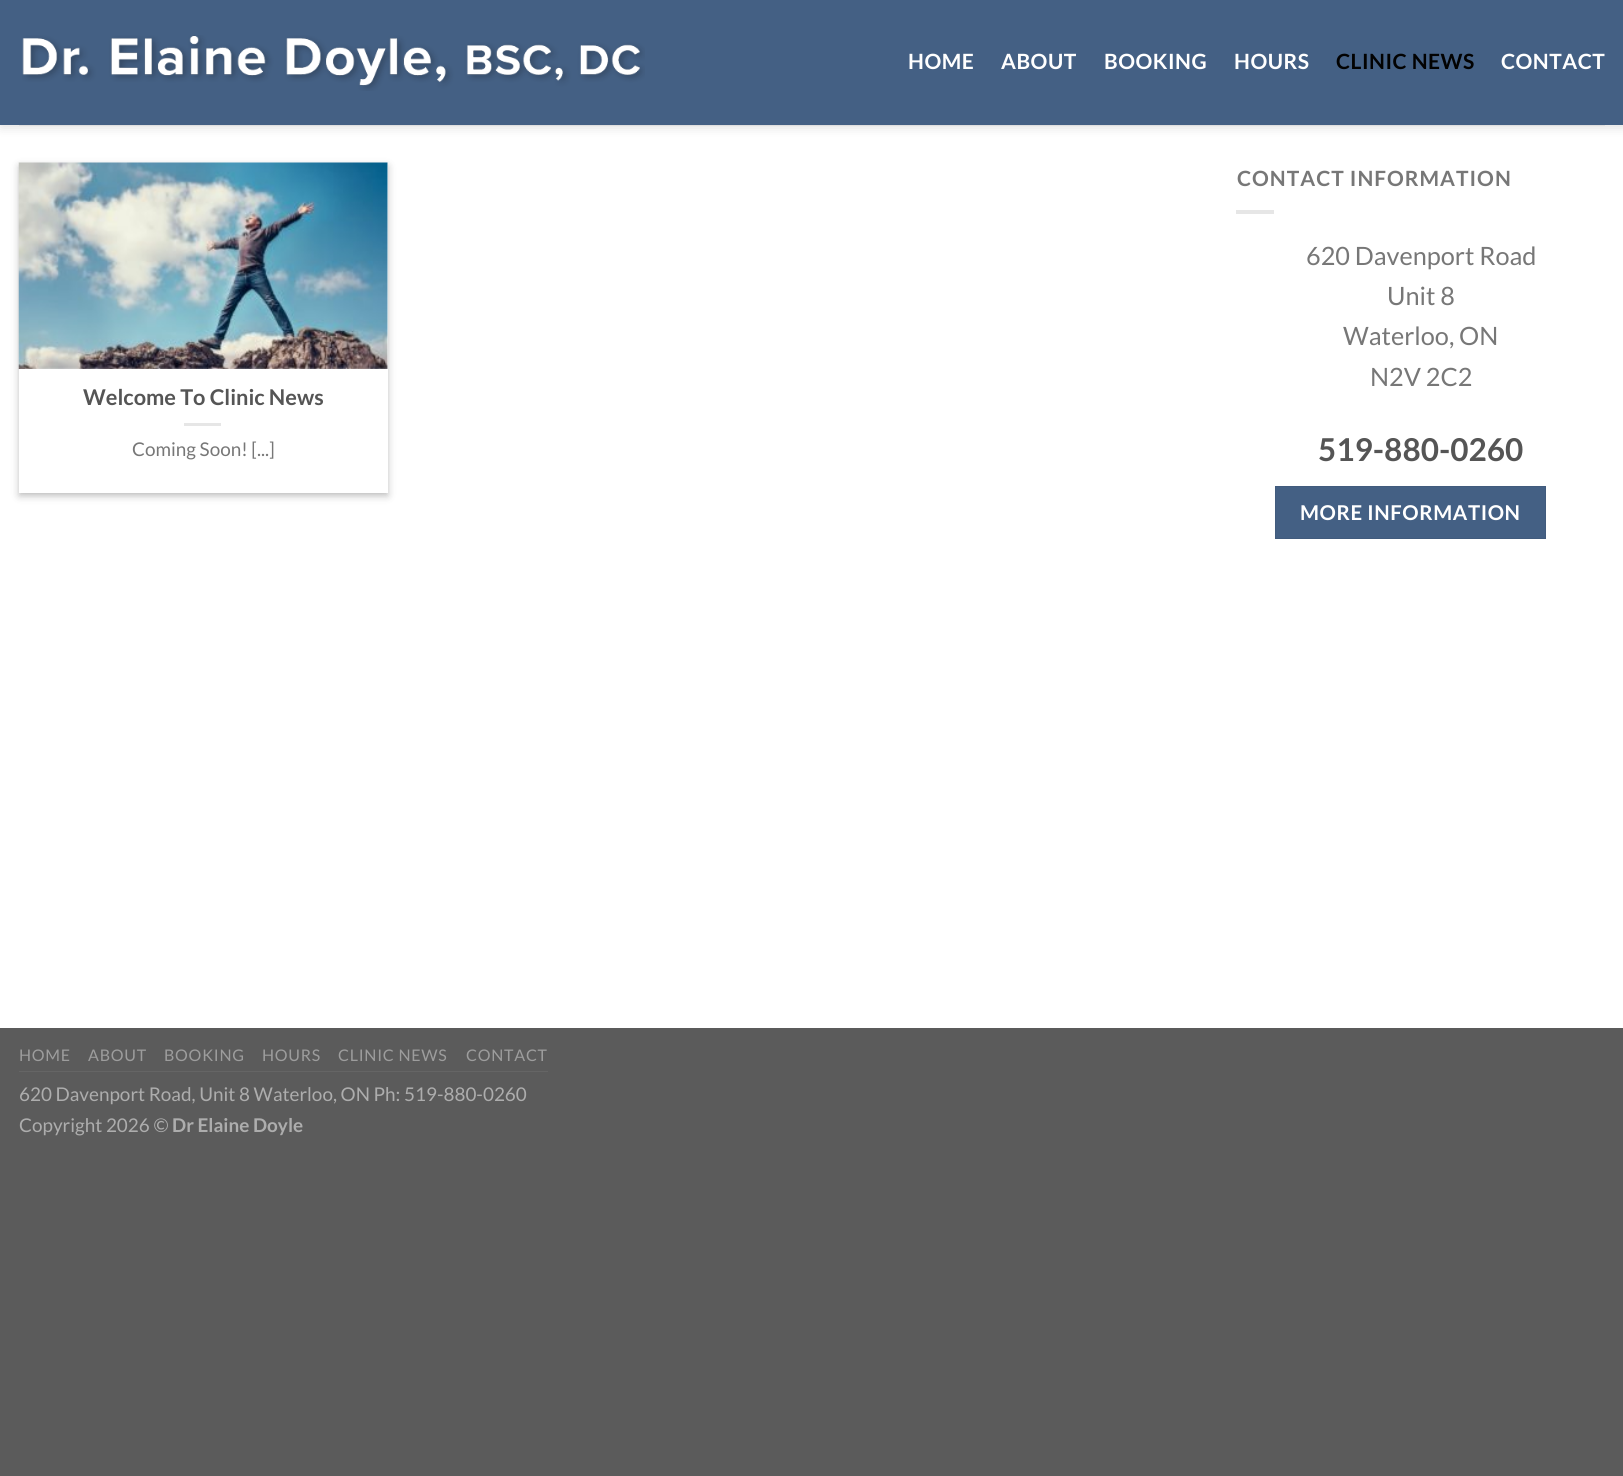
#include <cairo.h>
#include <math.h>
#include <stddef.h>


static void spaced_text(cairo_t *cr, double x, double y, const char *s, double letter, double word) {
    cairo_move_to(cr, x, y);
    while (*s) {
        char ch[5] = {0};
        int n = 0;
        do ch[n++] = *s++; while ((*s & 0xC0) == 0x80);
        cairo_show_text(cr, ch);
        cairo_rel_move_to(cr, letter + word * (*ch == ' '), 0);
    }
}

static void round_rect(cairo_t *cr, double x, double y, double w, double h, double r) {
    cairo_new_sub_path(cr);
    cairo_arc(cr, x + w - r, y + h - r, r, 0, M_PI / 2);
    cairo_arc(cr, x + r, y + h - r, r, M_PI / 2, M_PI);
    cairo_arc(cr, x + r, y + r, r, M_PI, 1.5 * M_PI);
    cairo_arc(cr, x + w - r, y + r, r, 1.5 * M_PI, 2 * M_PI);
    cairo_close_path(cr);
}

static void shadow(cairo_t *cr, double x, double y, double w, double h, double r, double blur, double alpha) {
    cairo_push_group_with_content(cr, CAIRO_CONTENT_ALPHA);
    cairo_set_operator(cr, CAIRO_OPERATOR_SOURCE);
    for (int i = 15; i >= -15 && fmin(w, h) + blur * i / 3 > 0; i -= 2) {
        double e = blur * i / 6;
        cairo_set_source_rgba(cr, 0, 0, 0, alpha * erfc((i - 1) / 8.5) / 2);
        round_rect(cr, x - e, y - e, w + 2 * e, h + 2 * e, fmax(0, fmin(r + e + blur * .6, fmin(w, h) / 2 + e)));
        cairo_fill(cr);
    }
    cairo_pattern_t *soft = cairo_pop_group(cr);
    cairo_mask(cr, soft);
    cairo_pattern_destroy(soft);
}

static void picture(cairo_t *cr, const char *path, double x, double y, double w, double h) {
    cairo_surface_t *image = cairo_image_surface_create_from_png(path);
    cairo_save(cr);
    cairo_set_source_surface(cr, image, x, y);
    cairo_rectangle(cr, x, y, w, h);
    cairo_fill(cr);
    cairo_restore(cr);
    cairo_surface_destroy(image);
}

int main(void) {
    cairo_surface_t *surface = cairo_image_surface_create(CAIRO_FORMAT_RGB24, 1623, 1476);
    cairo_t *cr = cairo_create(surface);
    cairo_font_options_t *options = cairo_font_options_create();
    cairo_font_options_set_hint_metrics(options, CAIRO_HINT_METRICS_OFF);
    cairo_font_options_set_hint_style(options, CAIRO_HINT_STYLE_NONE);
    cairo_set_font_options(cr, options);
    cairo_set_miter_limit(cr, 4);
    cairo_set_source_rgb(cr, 0.357, 0.357, 0.357);
    cairo_paint(cr);
    cairo_set_source_rgb(cr, 1, 1, 1);
    cairo_rectangle(cr, 0, 125, 1623, 903);
    cairo_fill(cr);
    cairo_set_source_rgb(cr, 0, 0, 0);
    shadow(cr, 1, 1, 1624, 125, 0, 6, 0.15);
    cairo_set_source_rgb(cr, 0.267, 0.376, 0.518);
    cairo_rectangle(cr, 0, 0, 1623, 125);
    cairo_fill(cr);
    picture(cr, "img1.png", 22, 35, 623, 56);
    cairo_select_font_face(cr, "Lato", CAIRO_FONT_SLANT_NORMAL, CAIRO_FONT_WEIGHT_BOLD);
    cairo_set_font_size(cr, 21);
    cairo_set_source_rgb(cr, 1, 1, 1);
    spaced_text(cr, 908, 69, "HOME", 0.5, 0);
    spaced_text(cr, 1001, 69, "ABOUT", 0.5, 0);
    spaced_text(cr, 1104, 69, "BOOKING", 0.5, 0);
    spaced_text(cr, 1234, 69, "HOURS", 0.5, 0);
    cairo_set_source_rgb(cr, 0.008, 0.008, 0.008);
    spaced_text(cr, 1336, 69, "CLINIC NEWS", 0.5, 0);
    cairo_set_source_rgb(cr, 1, 1, 1);
    spaced_text(cr, 1501, 69, "CONTACT", 0.5, 0);
    cairo_set_source_rgb(cr, 0.875, 0.875, 0.875);
    cairo_rectangle(cr, 19, 125, 1586, 1);
    cairo_fill(cr);
    cairo_set_source_rgb(cr, 0, 0, 0);
    shadow(cr, 19, 166, 369, 330, 0, 4, 0.23);
    shadow(cr, 24, 171, 359, 320, 0, 4, 0.16);
    cairo_set_source_rgb(cr, 1, 1, 1);
    cairo_rectangle(cr, 19, 163, 369, 330);
    cairo_fill(cr);
    picture(cr, "img2.png", 18, 162, 370, 207);
    cairo_set_font_size(cr, 21.75);
    cairo_set_source_rgb(cr, 0.333, 0.333, 0.333);
    cairo_move_to(cr, 83, 405);
    cairo_show_text(cr, "Welcome To Clinic News");
    cairo_set_source_rgb(cr, 0.902, 0.902, 0.902);
    cairo_rectangle(cr, 184, 423, 37, 3);
    cairo_fill(cr);
    cairo_select_font_face(cr, "Lato", CAIRO_FONT_SLANT_NORMAL, CAIRO_FONT_WEIGHT_NORMAL);
    cairo_set_font_size(cr, 18.9);
    cairo_set_source_rgb(cr, 0.467, 0.467, 0.467);
    cairo_move_to(cr, 132, 456);
    cairo_show_text(cr, "Coming Soon! [...]");
    cairo_select_font_face(cr, "Lato", CAIRO_FONT_SLANT_NORMAL, CAIRO_FONT_WEIGHT_BOLD);
    cairo_set_font_size(cr, 21);
    spaced_text(cr, 1237, 186, "CONTACT INFORMATION", 1, 0);
    cairo_set_source_rgb(cr, 0.902, 0.902, 0.902);
    cairo_rectangle(cr, 1236, 210, 38, 4);
    cairo_fill(cr);
    cairo_select_font_face(cr, "Lato", CAIRO_FONT_SLANT_NORMAL, CAIRO_FONT_WEIGHT_NORMAL);
    cairo_set_font_size(cr, 25.25);
    cairo_set_source_rgb(cr, 0.467, 0.467, 0.467);
    cairo_move_to(cr, 1306, 265);
    cairo_show_text(cr, "620 Davenport Road");
    cairo_move_to(cr, 1387, 305);
    cairo_show_text(cr, "Unit 8");
    cairo_move_to(cr, 1343, 345);
    cairo_show_text(cr, "Waterloo, ON");
    cairo_move_to(cr, 1370, 386);
    cairo_show_text(cr, "N2V 2C2");
    cairo_select_font_face(cr, "Lato", CAIRO_FONT_SLANT_NORMAL, CAIRO_FONT_WEIGHT_BOLD);
    cairo_set_font_size(cr, 31.5);
    cairo_set_source_rgb(cr, 0.333, 0.333, 0.333);
    cairo_move_to(cr, 1318, 461);
    cairo_show_text(cr, "519-880-0260");
    cairo_set_source_rgb(cr, 0.267, 0.376, 0.518);
    cairo_rectangle(cr, 1275.5, 486.5, 270, 52);
    cairo_fill_preserve(cr);
    cairo_set_source_rgb(cr, 0.255, 0.357, 0.49);
    cairo_set_line_width(cr, 1);
    cairo_stroke(cr);
    cairo_set_font_size(cr, 20.4);
    cairo_set_source_rgb(cr, 1, 1, 1);
    spaced_text(cr, 1300, 520, "MORE INFORMATION", 0.6, 0);
    cairo_set_source_rgb(cr, 0.396, 0.396, 0.396);
    cairo_rectangle(cr, 19, 1071, 529, 1);
    cairo_fill(cr);
    cairo_select_font_face(cr, "Lato", CAIRO_FONT_SLANT_NORMAL, CAIRO_FONT_WEIGHT_NORMAL);
    cairo_set_font_size(cr, 16);
    cairo_set_source_rgb(cr, 0.616, 0.616, 0.616);
    spaced_text(cr, 19, 1061, "HOME", 0.75, 0);
    spaced_text(cr, 88, 1061, "ABOUT", 0.75, 0);
    spaced_text(cr, 164, 1061, "BOOKING", 0.75, 0);
    spaced_text(cr, 262, 1061, "HOURS", 0.75, 0);
    spaced_text(cr, 338, 1061, "CLINIC NEWS", 0.75, 0);
    spaced_text(cr, 466, 1061, "CONTACT", 0.75, 0);
    cairo_set_font_size(cr, 18.9);
    cairo_set_source_rgb(cr, 0.678, 0.678, 0.678);
    cairo_move_to(cr, 19, 1101);
    cairo_show_text(cr, "620 Davenport Road, Unit 8 Waterloo, ON Ph: 519-880-0260");
    cairo_move_to(cr, 19, 1132);
    cairo_show_text(cr, "Copyright 2026 ©");
    cairo_select_font_face(cr, "Lato", CAIRO_FONT_SLANT_NORMAL, CAIRO_FONT_WEIGHT_BOLD);
    cairo_move_to(cr, 172, 1132);
    cairo_show_text(cr, "Dr Elaine Doyle");
    cairo_surface_write_to_png(surface, "page.png");
    cairo_font_options_destroy(options);
    cairo_destroy(cr);
    cairo_surface_destroy(surface);
    return 0;
}
